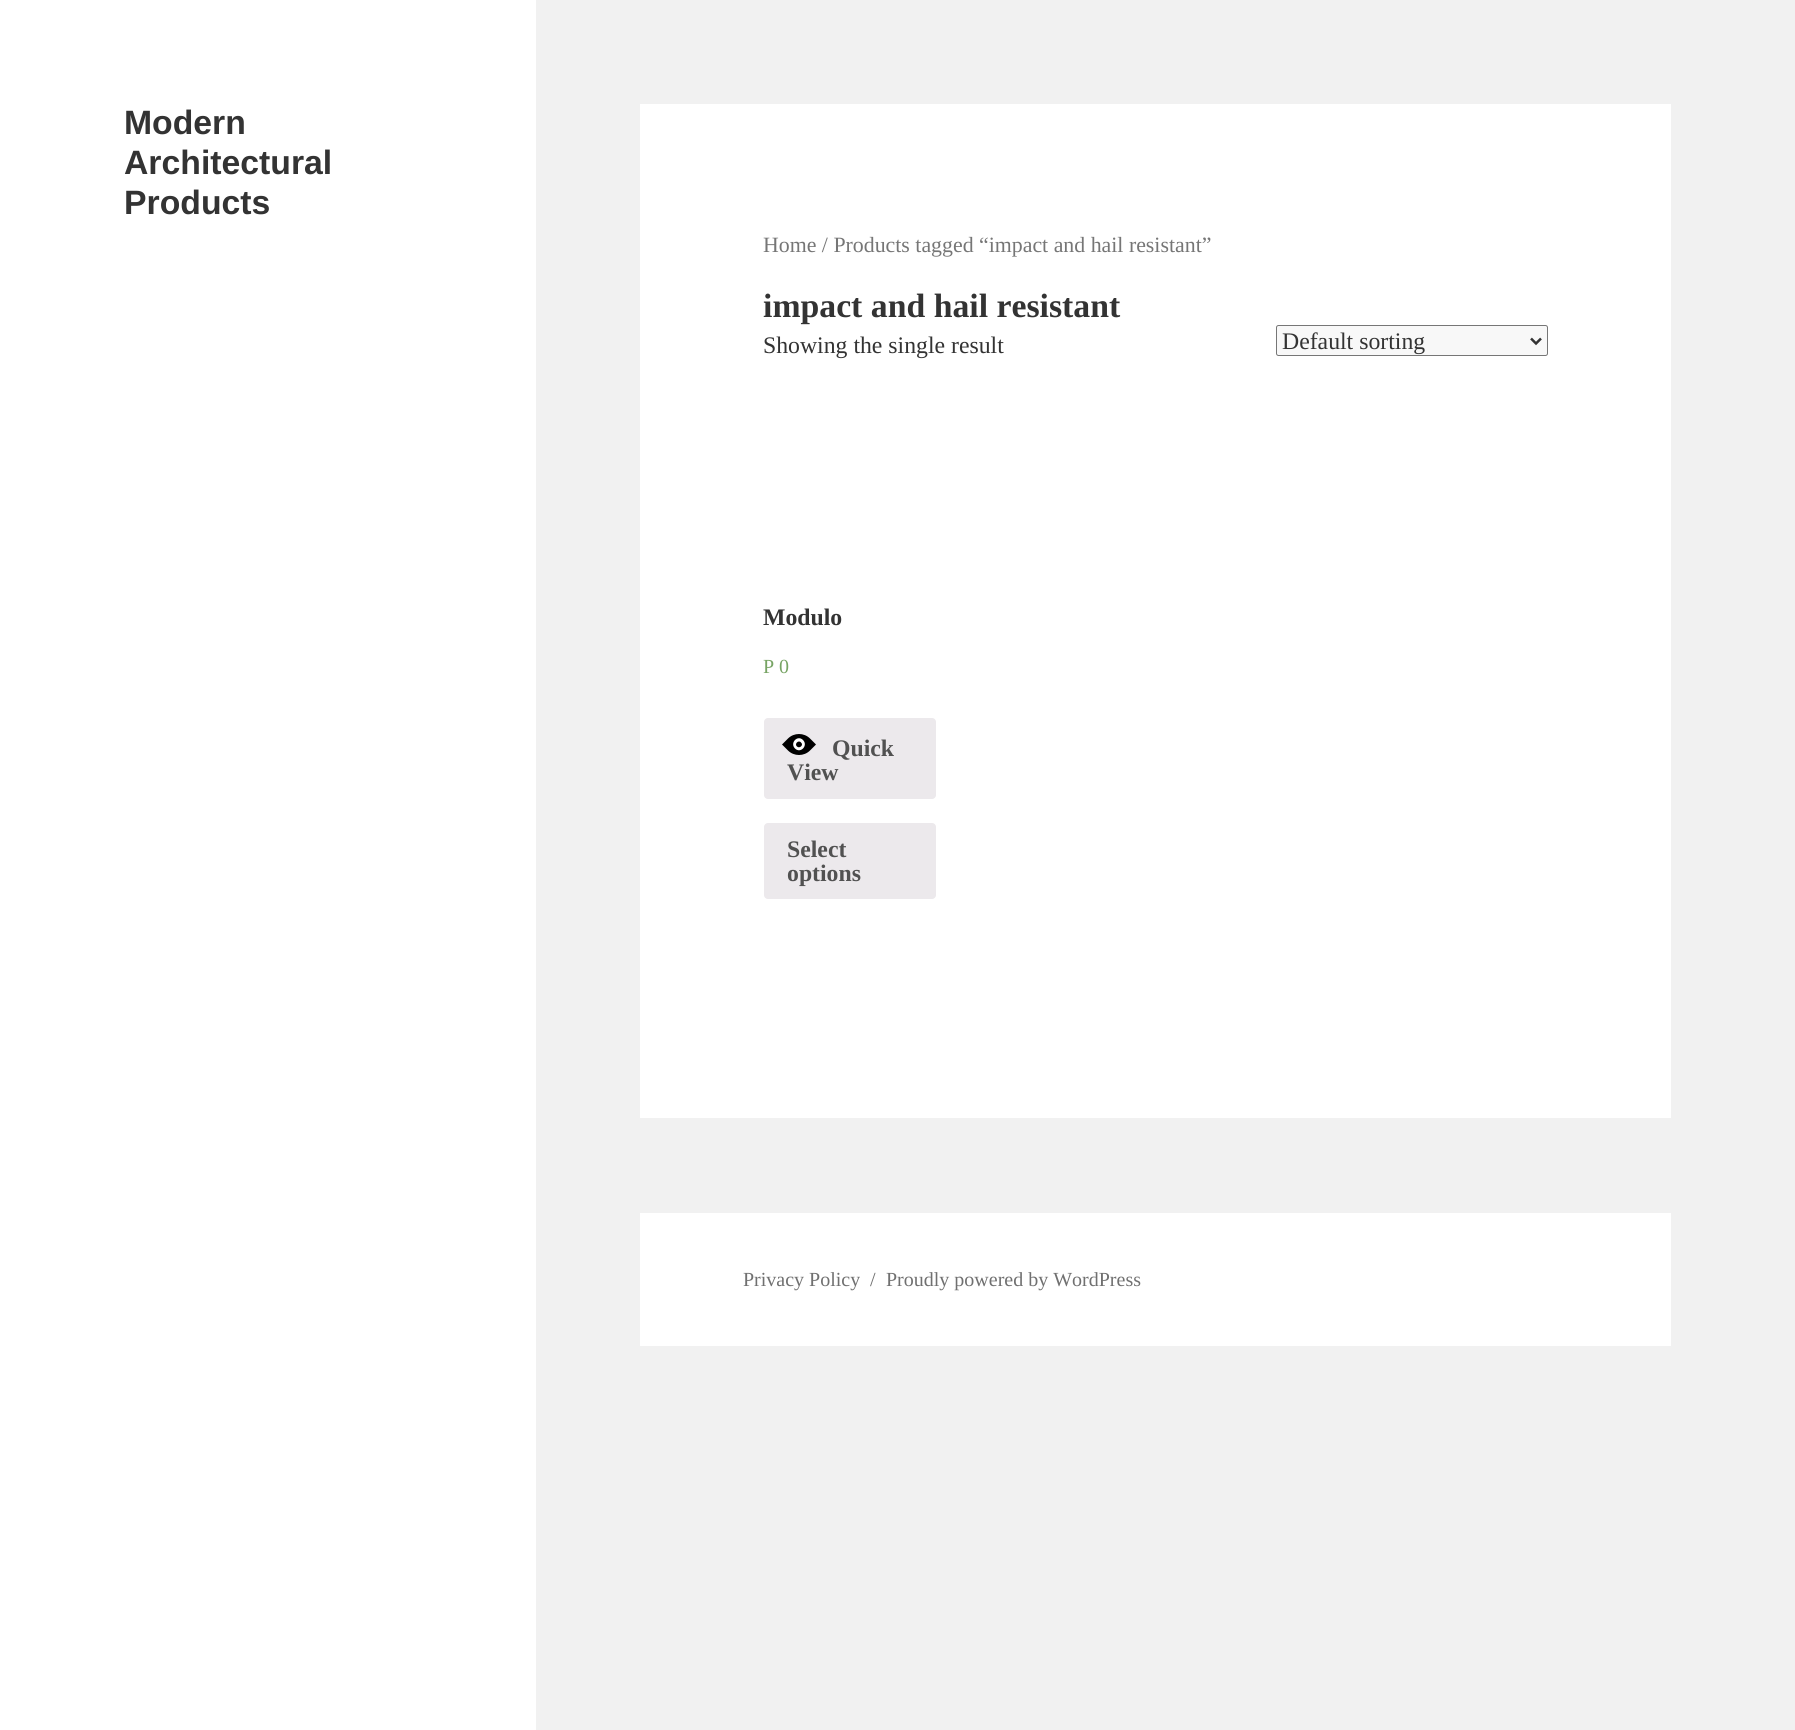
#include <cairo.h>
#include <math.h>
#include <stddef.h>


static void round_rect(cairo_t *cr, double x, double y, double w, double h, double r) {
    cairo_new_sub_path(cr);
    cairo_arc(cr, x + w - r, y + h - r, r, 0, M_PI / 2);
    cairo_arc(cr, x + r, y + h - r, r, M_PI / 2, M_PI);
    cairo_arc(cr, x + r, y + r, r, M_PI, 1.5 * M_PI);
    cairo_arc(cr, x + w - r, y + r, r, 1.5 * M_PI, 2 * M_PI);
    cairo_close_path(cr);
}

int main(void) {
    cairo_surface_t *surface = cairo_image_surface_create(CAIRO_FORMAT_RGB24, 1795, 1730);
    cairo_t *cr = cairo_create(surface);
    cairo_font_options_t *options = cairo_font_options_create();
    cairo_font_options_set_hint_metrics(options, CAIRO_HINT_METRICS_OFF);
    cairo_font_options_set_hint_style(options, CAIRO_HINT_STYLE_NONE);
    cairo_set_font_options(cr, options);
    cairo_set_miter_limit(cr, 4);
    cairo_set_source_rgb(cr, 0.945, 0.945, 0.945);
    cairo_paint(cr);
    cairo_set_source_rgb(cr, 1, 1, 1);
    cairo_rectangle(cr, 0, 0, 536, 1730);
    cairo_fill(cr);
    cairo_select_font_face(cr, "Liberation Sans", CAIRO_FONT_SLANT_NORMAL, CAIRO_FONT_WEIGHT_BOLD);
    cairo_set_font_size(cr, 33.75);
    cairo_set_source_rgb(cr, 0.2, 0.2, 0.2);
    cairo_move_to(cr, 124, 134);
    cairo_show_text(cr, "Modern");
    cairo_move_to(cr, 124, 174);
    cairo_show_text(cr, "Architectural");
    cairo_move_to(cr, 124, 214);
    cairo_show_text(cr, "Products");
    cairo_set_source_rgb(cr, 1, 1, 1);
    cairo_rectangle(cr, 640, 104, 1031, 1014);
    cairo_fill(cr);
    cairo_select_font_face(cr, "Liberation Serif", CAIRO_FONT_SLANT_NORMAL, CAIRO_FONT_WEIGHT_NORMAL);
    cairo_set_font_size(cr, 21.85);
    cairo_set_source_rgb(cr, 0.463, 0.463, 0.463);
    cairo_move_to(cr, 763, 252);
    cairo_show_text(cr, "Home / Products tagged “impact and hail resistant”");
    cairo_select_font_face(cr, "Liberation Serif", CAIRO_FONT_SLANT_NORMAL, CAIRO_FONT_WEIGHT_BOLD);
    cairo_set_font_size(cr, 33.75);
    cairo_set_source_rgb(cr, 0.2, 0.2, 0.2);
    cairo_move_to(cr, 763, 317);
    cairo_show_text(cr, "impact and hail resistant");
    cairo_select_font_face(cr, "Liberation Serif", CAIRO_FONT_SLANT_NORMAL, CAIRO_FONT_WEIGHT_NORMAL);
    cairo_set_font_size(cr, 23.75);
    cairo_move_to(cr, 763, 353);
    cairo_show_text(cr, "Showing the single result");
    cairo_set_source_rgb(cr, 0.969, 0.969, 0.969);
    round_rect(cr, 1276.5, 325.5, 271, 30, 2);
    cairo_fill_preserve(cr);
    cairo_set_source_rgb(cr, 0.463, 0.463, 0.463);
    cairo_set_line_width(cr, 1);
    cairo_stroke(cr);
    cairo_new_path(cr);
    cairo_move_to(cr, 1531, 338.5);
    cairo_line_to(cr, 1536, 343.5);
    cairo_line_to(cr, 1541, 338.5);
    cairo_set_source_rgb(cr, 0.2, 0.2, 0.2);
    cairo_set_line_width(cr, 2.5);
    cairo_stroke(cr);
    cairo_move_to(cr, 1282, 349);
    cairo_show_text(cr, "Default sorting");
    cairo_select_font_face(cr, "Liberation Serif", CAIRO_FONT_SLANT_NORMAL, CAIRO_FONT_WEIGHT_BOLD);
    cairo_move_to(cr, 763, 625);
    cairo_show_text(cr, "Modulo");
    cairo_select_font_face(cr, "Liberation Serif", CAIRO_FONT_SLANT_NORMAL, CAIRO_FONT_WEIGHT_NORMAL);
    cairo_set_font_size(cr, 20);
    cairo_set_source_rgb(cr, 0.467, 0.643, 0.392);
    cairo_move_to(cr, 763, 673);
    cairo_show_text(cr, "P 0");
    cairo_set_source_rgb(cr, 0.922, 0.914, 0.922);
    round_rect(cr, 764, 718, 172, 81, 4);
    cairo_fill(cr);
    cairo_set_source_rgb(cr, 0, 0, 0);
    cairo_new_path(cr);
    cairo_move_to(cr, 810, 738.5);
    cairo_line_to(cr, 816, 744.5);
    cairo_line_to(cr, 810, 750.5);
    cairo_curve_to(cr, 804, 756.5, 794, 756.5, 788, 750.5);
    cairo_line_to(cr, 782, 744.5);
    cairo_line_to(cr, 788, 738.5);
    cairo_curve_to(cr, 794, 732.5, 804, 732.5, 810, 738.5);
    cairo_close_path(cr);
    cairo_fill(cr);
    cairo_set_source_rgb(cr, 1, 1, 1);
    cairo_new_path(cr);
    cairo_move_to(cr, 803, 740);
    cairo_curve_to(cr, 808.5, 745.5, 800.5, 754, 795, 748.5);
    cairo_curve_to(cr, 789.5, 743, 797.5, 734.5, 803, 740);
    cairo_close_path(cr);
    cairo_fill(cr);
    cairo_set_source_rgb(cr, 0, 0, 0);
    cairo_new_path(cr);
    cairo_move_to(cr, 801, 742.5);
    cairo_curve_to(cr, 804, 745, 799.5, 749, 797, 746.5);
    cairo_curve_to(cr, 794, 744, 798.5, 739.5, 801, 742.5);
    cairo_close_path(cr);
    cairo_fill(cr);
    cairo_select_font_face(cr, "Liberation Serif", CAIRO_FONT_SLANT_NORMAL, CAIRO_FONT_WEIGHT_BOLD);
    cairo_set_font_size(cr, 23.75);
    cairo_set_source_rgb(cr, 0.318, 0.318, 0.318);
    cairo_move_to(cr, 832, 756);
    cairo_show_text(cr, "Quick");
    cairo_move_to(cr, 787, 780);
    cairo_show_text(cr, "View");
    cairo_set_source_rgb(cr, 0.922, 0.914, 0.922);
    round_rect(cr, 764, 823, 172, 76, 4);
    cairo_fill(cr);
    cairo_set_source_rgb(cr, 0.318, 0.318, 0.318);
    cairo_move_to(cr, 787, 857);
    cairo_show_text(cr, "Select");
    cairo_move_to(cr, 787, 881);
    cairo_show_text(cr, "options");
    cairo_set_source_rgb(cr, 1, 1, 1);
    cairo_rectangle(cr, 640, 1213, 1031, 133);
    cairo_fill(cr);
    cairo_select_font_face(cr, "Liberation Serif", CAIRO_FONT_SLANT_NORMAL, CAIRO_FONT_WEIGHT_NORMAL);
    cairo_set_font_size(cr, 20);
    cairo_set_source_rgb(cr, 0.439, 0.439, 0.439);
    cairo_move_to(cr, 743, 1286);
    cairo_show_text(cr, "Privacy Policy");
    cairo_move_to(cr, 870, 1286);
    cairo_show_text(cr, "/");
    cairo_move_to(cr, 886, 1286);
    cairo_show_text(cr, "Proudly powered by WordPress");
    cairo_surface_write_to_png(surface, "page.png");
    cairo_font_options_destroy(options);
    cairo_destroy(cr);
    cairo_surface_destroy(surface);
    return 0;
}
